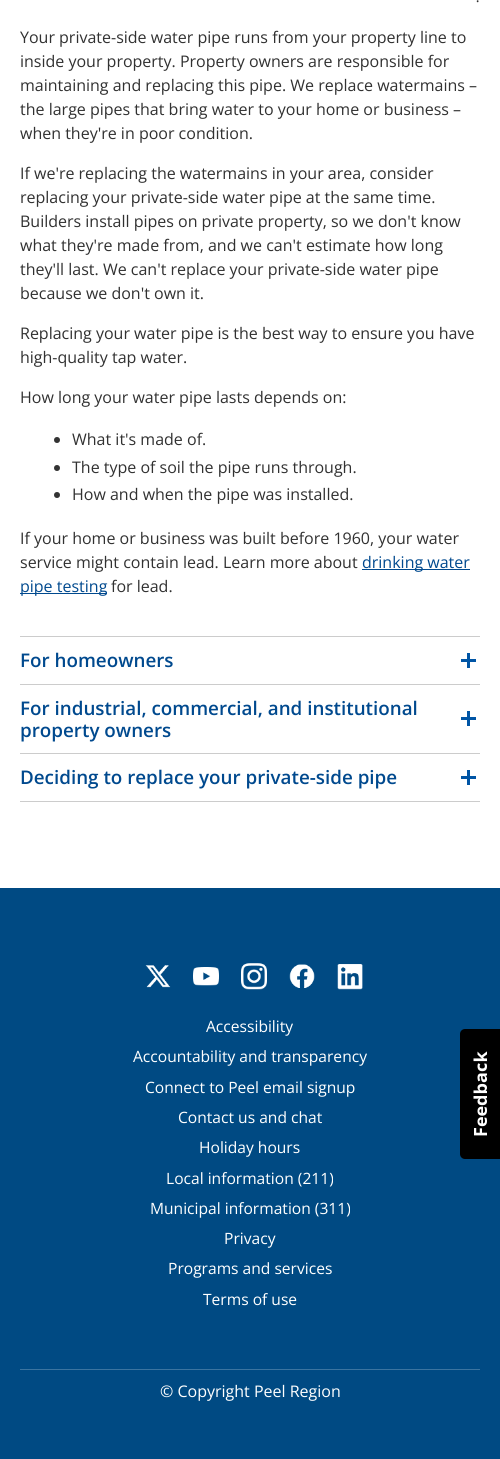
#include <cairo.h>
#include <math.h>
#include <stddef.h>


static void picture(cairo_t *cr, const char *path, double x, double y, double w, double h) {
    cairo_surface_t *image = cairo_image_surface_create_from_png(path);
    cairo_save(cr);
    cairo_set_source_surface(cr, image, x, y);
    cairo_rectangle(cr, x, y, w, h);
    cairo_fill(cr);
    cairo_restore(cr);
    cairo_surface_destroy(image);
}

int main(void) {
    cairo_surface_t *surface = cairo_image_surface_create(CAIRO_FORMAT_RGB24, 500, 1459);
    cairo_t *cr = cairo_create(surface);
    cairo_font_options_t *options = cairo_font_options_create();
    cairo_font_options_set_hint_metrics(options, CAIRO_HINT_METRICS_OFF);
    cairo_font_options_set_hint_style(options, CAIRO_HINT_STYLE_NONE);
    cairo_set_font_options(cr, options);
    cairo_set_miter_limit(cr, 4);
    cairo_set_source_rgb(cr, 1, 1, 1);
    cairo_paint(cr);
    cairo_select_font_face(cr, "Open Sans Light", CAIRO_FONT_SLANT_NORMAL, CAIRO_FONT_WEIGHT_NORMAL);
    cairo_set_font_size(cr, 22);
    cairo_set_source_rgb(cr, 0.192, 0.192, 0.192);
    cairo_move_to(cr, 475, 2);
    cairo_show_text(cr, ".");
    cairo_select_font_face(cr, "Open Sans", CAIRO_FONT_SLANT_NORMAL, CAIRO_FONT_WEIGHT_NORMAL);
    cairo_set_font_size(cr, 16);
    cairo_move_to(cr, 20, 43);
    cairo_show_text(cr, "Your private-side water pipe runs from your property line to");
    cairo_move_to(cr, 20, 67);
    cairo_show_text(cr, "inside your property. Property owners are responsible for");
    cairo_move_to(cr, 20, 91);
    cairo_show_text(cr, "maintaining and replacing this pipe. We replace watermains –");
    cairo_move_to(cr, 20, 115);
    cairo_show_text(cr, "the large pipes that bring water to your home or business –");
    cairo_move_to(cr, 20, 139);
    cairo_show_text(cr, "when they're in poor condition.");
    cairo_move_to(cr, 20, 179);
    cairo_show_text(cr, "If we're replacing the watermains in your area, consider");
    cairo_move_to(cr, 20, 203);
    cairo_show_text(cr, "replacing your private-side water pipe at the same time.");
    cairo_move_to(cr, 20, 227);
    cairo_show_text(cr, "Builders install pipes on private property, so we don't know");
    cairo_move_to(cr, 20, 251);
    cairo_show_text(cr, "what they're made from, and we can't estimate how long");
    cairo_move_to(cr, 20, 275);
    cairo_show_text(cr, "they'll last. We can't replace your private-side water pipe");
    cairo_move_to(cr, 20, 299);
    cairo_show_text(cr, "because we don't own it.");
    cairo_move_to(cr, 20, 339);
    cairo_show_text(cr, "Replacing your water pipe is the best way to ensure you have");
    cairo_move_to(cr, 20, 363);
    cairo_show_text(cr, "high-quality tap water.");
    cairo_move_to(cr, 20, 403);
    cairo_show_text(cr, "How long your water pipe lasts depends on:");
    cairo_set_source_rgb(cr, 0.2, 0.2, 0.2);
    cairo_new_path(cr);
    cairo_arc(cr, 57, 440, 3, 0, 2 * M_PI);
    cairo_fill(cr);
    cairo_set_source_rgb(cr, 0.192, 0.192, 0.192);
    cairo_move_to(cr, 72, 445);
    cairo_show_text(cr, "What it's made of.");
    cairo_set_source_rgb(cr, 0.2, 0.2, 0.2);
    cairo_new_path(cr);
    cairo_arc(cr, 57, 468, 3, 0, 2 * M_PI);
    cairo_fill(cr);
    cairo_set_source_rgb(cr, 0.192, 0.192, 0.192);
    cairo_move_to(cr, 72, 473);
    cairo_show_text(cr, "The type of soil the pipe runs through.");
    cairo_set_source_rgb(cr, 0.2, 0.2, 0.2);
    cairo_new_path(cr);
    cairo_arc(cr, 57, 495, 3, 0, 2 * M_PI);
    cairo_fill(cr);
    cairo_set_source_rgb(cr, 0.192, 0.192, 0.192);
    cairo_move_to(cr, 72, 500);
    cairo_show_text(cr, "How and when the pipe was installed.");
    cairo_move_to(cr, 20, 544);
    cairo_show_text(cr, "If your home or business was built before 1960, your water");
    cairo_move_to(cr, 20, 568);
    cairo_show_text(cr, "service might contain lead. Learn more about");
    cairo_set_source_rgb(cr, 0, 0.286, 0.557);
    cairo_rectangle(cr, 362, 569, 108, 1);
    cairo_fill(cr);
    cairo_move_to(cr, 362, 568);
    cairo_show_text(cr, "drinking water");
    cairo_rectangle(cr, 20, 593, 87, 1);
    cairo_fill(cr);
    cairo_move_to(cr, 20, 592);
    cairo_show_text(cr, "pipe testing");
    cairo_set_source_rgb(cr, 0.192, 0.192, 0.192);
    cairo_move_to(cr, 111, 592);
    cairo_show_text(cr, "for lead.");
    cairo_set_source_rgb(cr, 0.8, 0.8, 0.8);
    cairo_rectangle(cr, 20, 801, 460, 1);
    cairo_fill(cr);
    cairo_rectangle(cr, 20, 636, 460, 1);
    cairo_fill(cr);
    picture(cr, "img1.png", 461, 653, 15, 15);
    cairo_select_font_face(cr, "Open Sans SemiBold", CAIRO_FONT_SLANT_NORMAL, CAIRO_FONT_WEIGHT_NORMAL);
    cairo_set_font_size(cr, 18.8);
    cairo_set_source_rgb(cr, 0, 0.286, 0.557);
    cairo_move_to(cr, 20, 667);
    cairo_show_text(cr, "For homeowners");
    cairo_set_source_rgb(cr, 0.8, 0.8, 0.8);
    cairo_rectangle(cr, 20, 684, 460, 1);
    cairo_fill(cr);
    picture(cr, "img1.png", 461, 711, 15, 15);
    cairo_set_source_rgb(cr, 0, 0.286, 0.557);
    cairo_move_to(cr, 20, 715);
    cairo_show_text(cr, "For industrial, commercial, and institutional");
    cairo_move_to(cr, 20, 737);
    cairo_show_text(cr, "property owners");
    cairo_set_source_rgb(cr, 0.8, 0.8, 0.8);
    cairo_rectangle(cr, 20, 753, 460, 1);
    cairo_fill(cr);
    picture(cr, "img1.png", 461, 770, 15, 15);
    cairo_set_source_rgb(cr, 0, 0.286, 0.557);
    cairo_move_to(cr, 20, 784);
    cairo_show_text(cr, "Deciding to replace your private-side pipe");
    cairo_set_source_rgb(cr, 0, 0.29, 0.514);
    cairo_rectangle(cr, 0, 888, 500, 571);
    cairo_fill(cr);
    picture(cr, "img2.png", 145, 965, 26, 23);
    picture(cr, "img3.png", 193, 967, 26, 19);
    picture(cr, "img4.png", 241, 963, 26, 27);
    picture(cr, "img5.png", 289, 964, 26, 24);
    picture(cr, "img6.png", 337, 964, 26, 26);
    cairo_select_font_face(cr, "Open Sans", CAIRO_FONT_SLANT_NORMAL, CAIRO_FONT_WEIGHT_NORMAL);
    cairo_set_font_size(cr, 15.6);
    cairo_set_source_rgb(cr, 1, 1, 1);
    cairo_move_to(cr, 206, 1032);
    cairo_show_text(cr, "Accessibility");
    cairo_move_to(cr, 133, 1062);
    cairo_show_text(cr, "Accountability and transparency");
    cairo_move_to(cr, 145, 1093);
    cairo_show_text(cr, "Connect to Peel email signup");
    cairo_move_to(cr, 178, 1123);
    cairo_show_text(cr, "Contact us and chat");
    cairo_move_to(cr, 199, 1153);
    cairo_show_text(cr, "Holiday hours");
    cairo_move_to(cr, 166, 1184);
    cairo_show_text(cr, "Local information (211)");
    cairo_move_to(cr, 150, 1214);
    cairo_show_text(cr, "Municipal information (311)");
    cairo_move_to(cr, 224, 1244);
    cairo_show_text(cr, "Privacy");
    cairo_move_to(cr, 168, 1274);
    cairo_show_text(cr, "Programs and services");
    cairo_move_to(cr, 203, 1305);
    cairo_show_text(cr, "Terms of use");
    cairo_set_source_rgb(cr, 0.231, 0.455, 0.627);
    cairo_rectangle(cr, 20, 1369, 460, 1);
    cairo_fill(cr);
    cairo_set_font_size(cr, 16);
    cairo_set_source_rgb(cr, 1, 1, 1);
    cairo_move_to(cr, 160, 1397);
    cairo_show_text(cr, "© Copyright Peel Region");
    picture(cr, "img7.png", 460, 1029, 40, 130);
    cairo_surface_write_to_png(surface, "page.png");
    cairo_font_options_destroy(options);
    cairo_destroy(cr);
    cairo_surface_destroy(surface);
    return 0;
}
